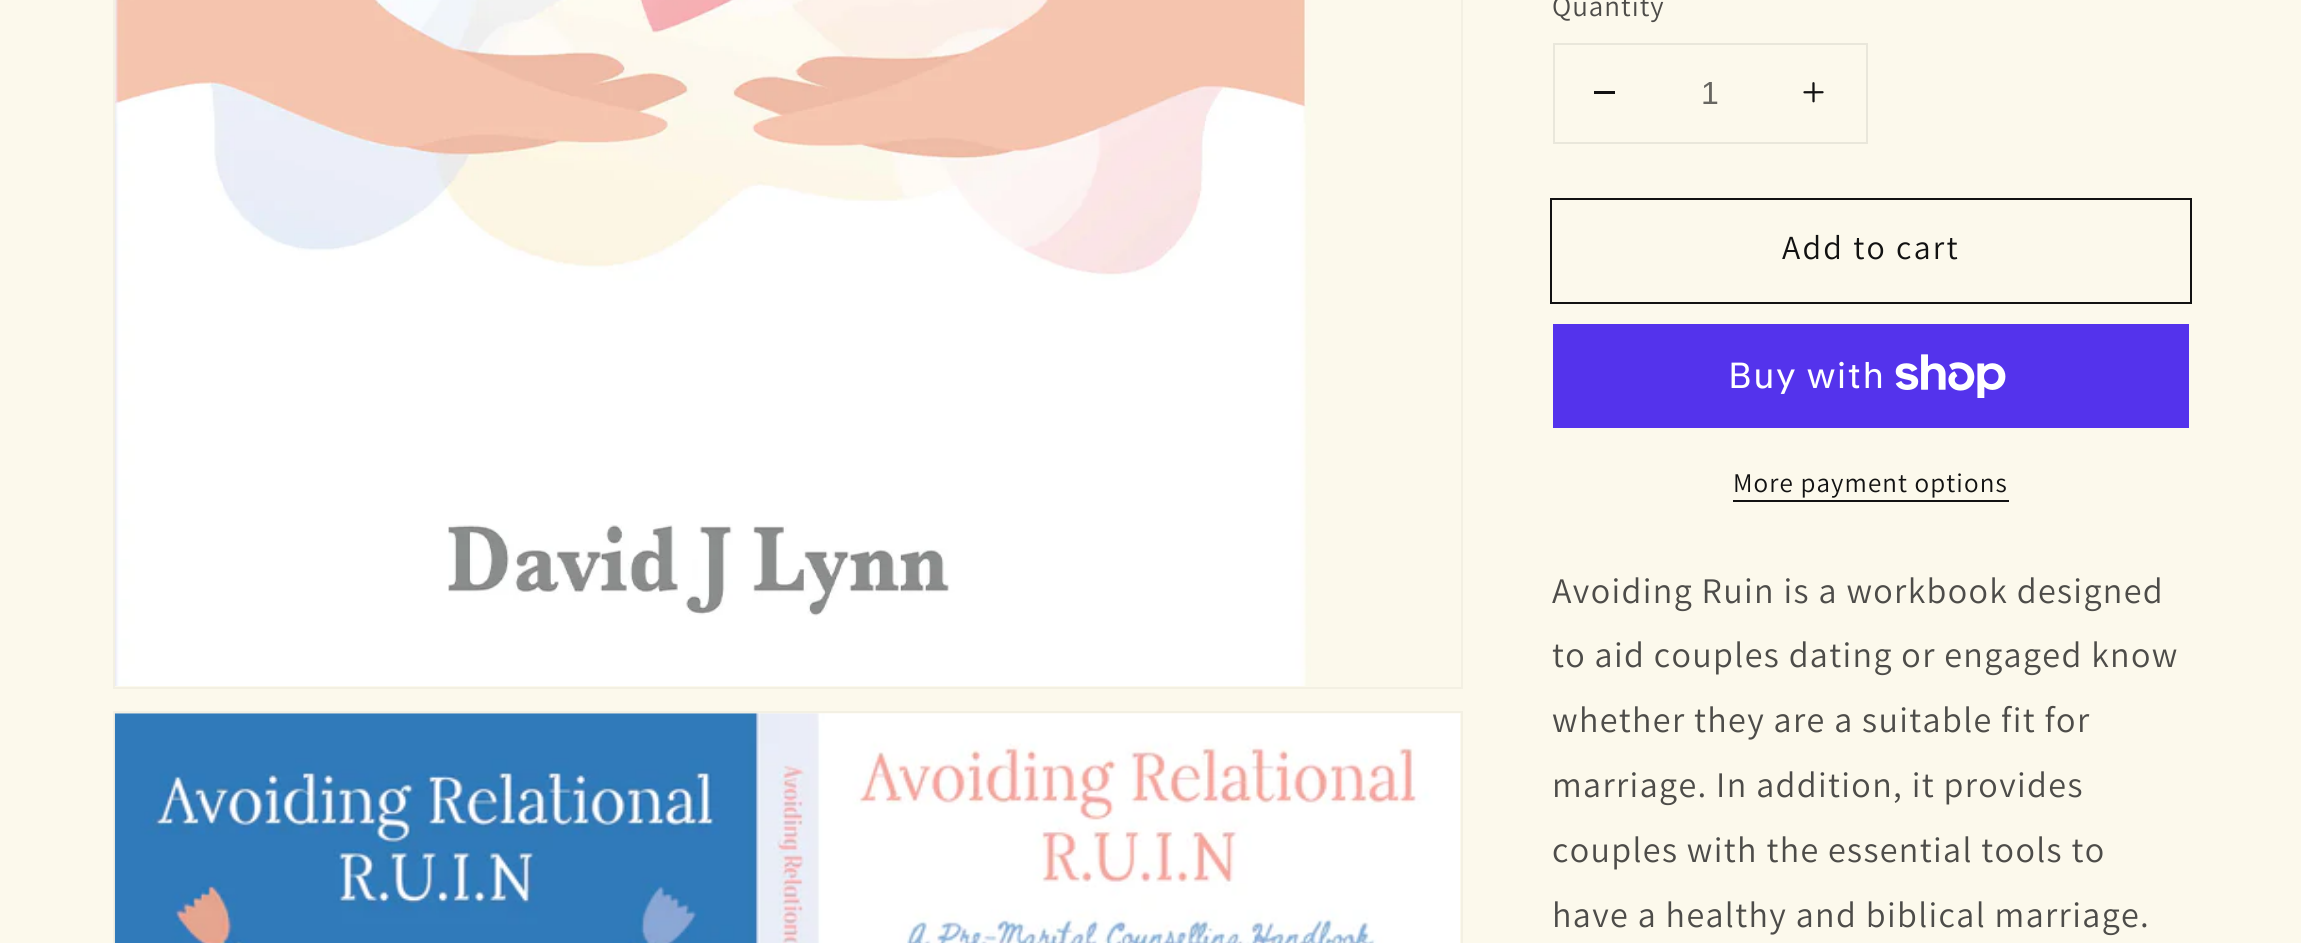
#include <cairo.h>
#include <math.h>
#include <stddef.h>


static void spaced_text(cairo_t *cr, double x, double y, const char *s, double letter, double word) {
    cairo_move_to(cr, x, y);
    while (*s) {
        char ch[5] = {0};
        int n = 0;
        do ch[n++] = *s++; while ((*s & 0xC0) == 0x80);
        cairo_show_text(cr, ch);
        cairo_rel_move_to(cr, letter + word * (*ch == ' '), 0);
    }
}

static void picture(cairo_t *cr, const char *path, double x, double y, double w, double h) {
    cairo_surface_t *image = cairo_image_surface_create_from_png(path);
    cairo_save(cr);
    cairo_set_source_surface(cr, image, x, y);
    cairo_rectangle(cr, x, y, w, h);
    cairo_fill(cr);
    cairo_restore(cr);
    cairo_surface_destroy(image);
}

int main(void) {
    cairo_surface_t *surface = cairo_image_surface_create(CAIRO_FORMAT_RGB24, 2301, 943);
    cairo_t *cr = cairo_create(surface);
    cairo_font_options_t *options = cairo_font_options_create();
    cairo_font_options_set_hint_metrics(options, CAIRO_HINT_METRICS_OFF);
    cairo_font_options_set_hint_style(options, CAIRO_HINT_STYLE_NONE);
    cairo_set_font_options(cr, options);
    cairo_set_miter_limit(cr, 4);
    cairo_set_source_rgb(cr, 0.988, 0.976, 0.925);
    cairo_paint(cr);
    cairo_rectangle(cr, 114, -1, 1348, 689);
    cairo_set_source_rgb(cr, 0.953, 0.941, 0.89);
    cairo_stroke(cr);
    picture(cr, "img1.png", 115, 0, 1196, 686);
    cairo_rectangle(cr, 114, 712, 1348, 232);
    cairo_stroke(cr);
    picture(cr, "img2.png", 114, 713, 1346, 230);
    cairo_select_font_face(cr, "Assistant", CAIRO_FONT_SLANT_NORMAL, CAIRO_FONT_WEIGHT_NORMAL);
    cairo_set_font_size(cr, 29);
    cairo_set_source_rgb(cr, 0.302, 0.298, 0.286);
    spaced_text(cr, 1552, 16, "Quantity", 1, 0);
    cairo_rectangle(cr, 1554, 44, 313, 99);
    cairo_set_source_rgb(cr, 0.914, 0.906, 0.859);
    cairo_stroke(cr);
    cairo_set_source_rgb(cr, 0.071, 0.071, 0.071);
    cairo_rectangle(cr, 1594, 91, 21, 3);
    cairo_fill(cr);
    cairo_select_font_face(cr, "Liberation Sans", CAIRO_FONT_SLANT_NORMAL, CAIRO_FONT_WEIGHT_NORMAL);
    cairo_set_font_size(cr, 32);
    cairo_set_source_rgb(cr, 0.404, 0.4, 0.38);
    cairo_move_to(cr, 1701, 104);
    cairo_show_text(cr, "1");
    picture(cr, "img3.png", 1803, 82, 21, 21);
    cairo_rectangle(cr, 1551, 199, 640, 104);
    cairo_set_source_rgb(cr, 0.071, 0.071, 0.071);
    cairo_stroke(cr);
    cairo_select_font_face(cr, "Assistant", CAIRO_FONT_SLANT_NORMAL, CAIRO_FONT_WEIGHT_NORMAL);
    cairo_set_font_size(cr, 33.75);
    spaced_text(cr, 1782, 259, "Add to cart", 2.25, 0);
    cairo_set_source_rgb(cr, 0.329, 0.2, 0.922);
    cairo_rectangle(cr, 1553, 324, 636, 104);
    cairo_fill(cr);
    cairo_select_font_face(cr, "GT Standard", CAIRO_FONT_SLANT_NORMAL, CAIRO_FONT_WEIGHT_NORMAL);
    cairo_set_font_size(cr, 36);
    cairo_set_source_rgb(cr, 1, 1, 1);
    spaced_text(cr, 1728, 388, "Buy with", 1.35, 0);
    picture(cr, "img4.png", 1895, 354, 111, 44);
    cairo_select_font_face(cr, "Assistant", CAIRO_FONT_SLANT_NORMAL, CAIRO_FONT_WEIGHT_NORMAL);
    cairo_set_font_size(cr, 27);
    cairo_set_source_rgb(cr, 0.071, 0.071, 0.071);
    spaced_text(cr, 1733, 492, "More payment options", 1.1, 0);
    cairo_rectangle(cr, 1733, 500, 276, 2);
    cairo_fill(cr);
    cairo_set_font_size(cr, 36);
    cairo_set_source_rgb(cr, 0.302, 0.298, 0.286);
    spaced_text(cr, 1552, 603, "Avoiding Ruin is a workbook designed", 1.35, 0);
    spaced_text(cr, 1552, 667, "to aid couples dating or engaged know", 1.35, 0);
    spaced_text(cr, 1552, 732, "whether they are a suitable fit for", 1.35, 0);
    spaced_text(cr, 1552, 797, "marriage. In addition, it provides", 1.35, 0);
    spaced_text(cr, 1552, 862, "couples with the essential tools to", 1.35, 0);
    spaced_text(cr, 1552, 927, "have a healthy and biblical marriage.", 1.35, 0);
    cairo_surface_write_to_png(surface, "page.png");
    cairo_font_options_destroy(options);
    cairo_destroy(cr);
    cairo_surface_destroy(surface);
    return 0;
}
